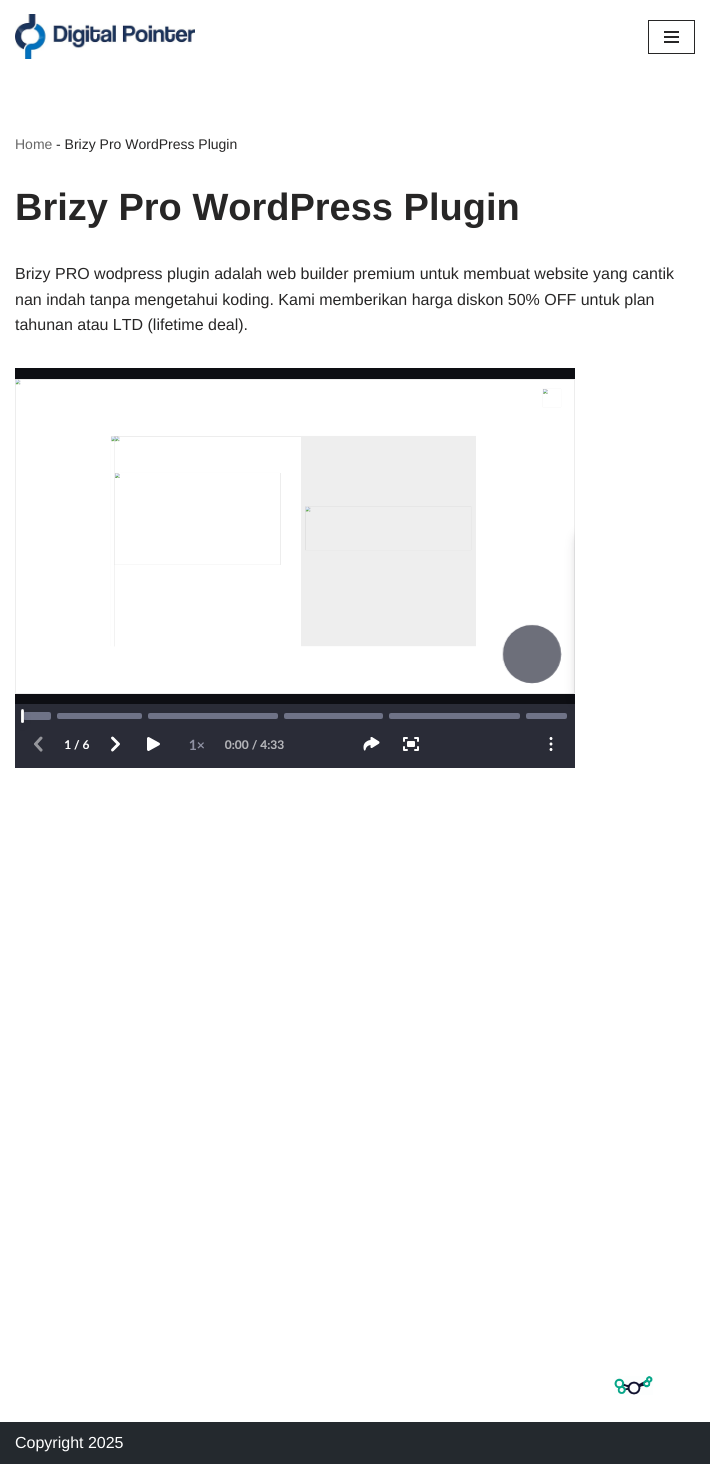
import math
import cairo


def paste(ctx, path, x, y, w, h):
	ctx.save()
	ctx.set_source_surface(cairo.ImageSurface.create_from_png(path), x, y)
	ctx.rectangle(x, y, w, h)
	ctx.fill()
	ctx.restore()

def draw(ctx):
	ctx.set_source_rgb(1, 1, 1)
	ctx.paint()
	paste(ctx, 'media/1.png', 15, 14, 180, 45)
	ctx.rectangle(648.5, 20.5, 46, 33)
	ctx.set_source_rgb(0.153, 0.149, 0.149)
	ctx.set_line_width(1)
	ctx.stroke()
	ctx.rectangle(664, 31, 15, 2)
	ctx.rectangle(664, 36, 15, 2)
	ctx.rectangle(664, 41, 15, 2)
	ctx.fill()
	ctx.select_font_face('Liberation Sans')
	ctx.set_font_size(14)
	ctx.set_source_rgb(0.404, 0.404, 0.404)
	ctx.move_to(15, 149)
	ctx.show_text('Home')
	ctx.set_source_rgb(0.153, 0.149, 0.149)
	ctx.move_to(56, 149)
	ctx.show_text('- Brizy Pro WordPress Plugin')
	ctx.select_font_face('Liberation Sans', cairo.FONT_SLANT_NORMAL, cairo.FONT_WEIGHT_BOLD)
	ctx.set_font_size(38)
	ctx.move_to(15, 220)
	ctx.show_text('Brizy Pro WordPress Plugin')
	ctx.select_font_face('Liberation Sans')
	ctx.set_font_size(16)
	for x, y, s in [
		(15, 279, 'Brizy PRO wodpress plugin adalah web builder premium untuk membuat website yang cantik'),
		(15, 305, 'nan indah tanpa mengetahui koding. Kami memberikan harga diskon 50% OFF untuk plan'),
		(15, 330, 'tahunan atau LTD (lifetime deal).'),
	]:
		ctx.move_to(x, y)
		ctx.show_text(s)
	paste(ctx, 'media/2.png', 15, 368, 560, 400)
	ctx.set_source_rgb(0.141, 0.161, 0.18)
	ctx.rectangle(0, 1422, 710, 42)
	ctx.fill()
	ctx.set_source_rgb(1, 1, 1)
	ctx.move_to(15, 1448)
	ctx.show_text('Copyright 2025')
	paste(ctx, 'media/3.png', 614, 1376, 39, 19)


surface = cairo.ImageSurface(cairo.FORMAT_RGB24, 710, 1464)
ctx = cairo.Context(surface)
options = cairo.FontOptions()
options.set_hint_metrics(cairo.HINT_METRICS_OFF)
options.set_hint_style(cairo.HINT_STYLE_NONE)
ctx.set_font_options(options)
ctx.set_miter_limit(4)
draw(ctx)
surface.write_to_png('image.png')
